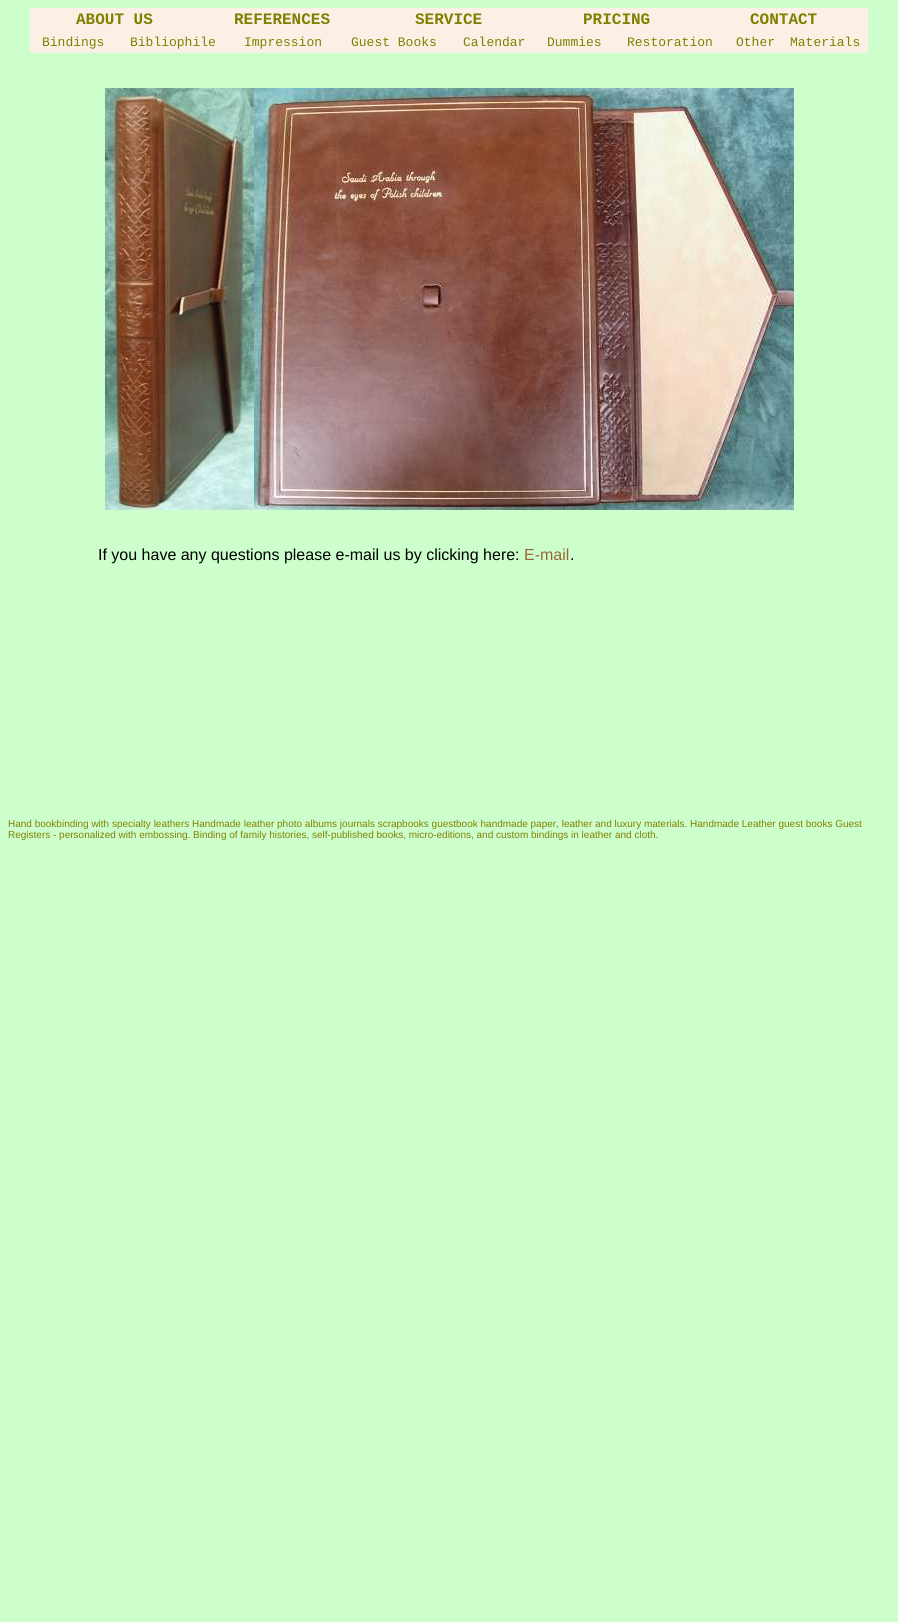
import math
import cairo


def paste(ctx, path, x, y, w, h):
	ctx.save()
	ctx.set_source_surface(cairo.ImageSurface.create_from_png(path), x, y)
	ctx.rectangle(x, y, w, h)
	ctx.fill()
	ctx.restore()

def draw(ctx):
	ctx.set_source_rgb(0.8, 1, 0.8)
	ctx.paint()
	ctx.set_source_rgb(0.98, 0.941, 0.902)
	ctx.rectangle(30, 8, 838, 45)
	ctx.fill()
	ctx.select_font_face('Liberation Mono', cairo.FONT_SLANT_NORMAL, cairo.FONT_WEIGHT_BOLD)
	ctx.set_font_size(16)
	ctx.set_source_rgb(0.502, 0.502, 0)
	for x, y, s in [
		(76, 24, 'ABOUT US'),
		(234, 24, 'REFERENCES'),
		(415, 24, 'SERVICE'),
		(583, 24, 'PRICING'),
		(750, 24, 'CONTACT'),
	]:
		ctx.move_to(x, y)
		ctx.show_text(s)
	ctx.select_font_face('Liberation Mono')
	ctx.set_font_size(13)
	for x, y, s in [
		(42, 46, 'Bindings'),
		(130, 46, 'Bibliophile'),
		(244, 46, 'Impression'),
		(351, 46, 'Guest Books'),
		(463, 46, 'Calendar'),
		(547, 46, 'Dummies'),
		(627, 46, 'Restoration'),
		(736, 46, 'Other'),
		(790, 46, 'Materials'),
	]:
		ctx.move_to(x, y)
		ctx.show_text(s)
	paste(ctx, 'media/1.png', 105, 88, 149, 422)
	paste(ctx, 'media/2.png', 254, 88, 540, 422)
	ctx.select_font_face('Liberation Sans')
	ctx.set_font_size(16)
	ctx.set_source_rgb(0, 0, 0)
	ctx.move_to(98, 560)
	ctx.show_text('If you have any questions please e-mail us by clicking here:')
	ctx.set_source_rgb(0.6, 0.4, 0.2)
	ctx.move_to(524, 560)
	ctx.show_text('E-mail')
	ctx.set_source_rgb(0, 0, 0)
	ctx.move_to(570, 560)
	ctx.show_text('.')
	ctx.set_font_size(10)
	ctx.set_source_rgb(0.502, 0.502, 0)
	ctx.move_to(8, 827)
	ctx.show_text('Hand bookbinding with specialty leathers Handmade leather photo albums journals scrapbooks guestbook handmade paper, leather and luxury materials. Handmade Leather guest books Guest')
	ctx.move_to(8, 838)
	ctx.show_text('Registers - personalized with embossing. Binding of family histories, self-published books, micro-editions, and custom bindings in leather and cloth.')


surface = cairo.ImageSurface(cairo.FORMAT_RGB24, 898, 1622)
ctx = cairo.Context(surface)
options = cairo.FontOptions()
options.set_hint_metrics(cairo.HINT_METRICS_OFF)
options.set_hint_style(cairo.HINT_STYLE_NONE)
ctx.set_font_options(options)
ctx.set_miter_limit(4)
draw(ctx)
surface.write_to_png('image.png')
